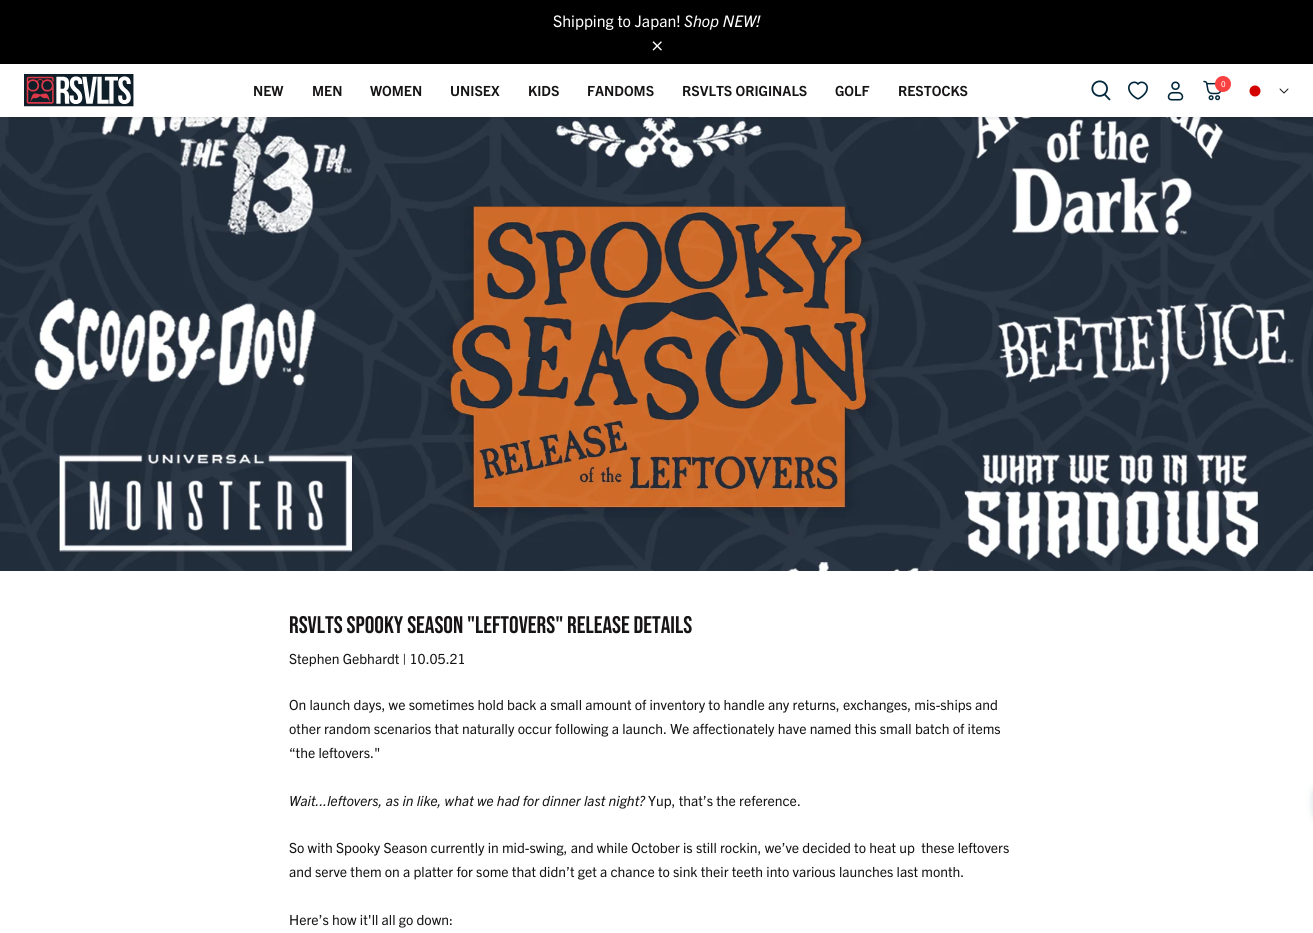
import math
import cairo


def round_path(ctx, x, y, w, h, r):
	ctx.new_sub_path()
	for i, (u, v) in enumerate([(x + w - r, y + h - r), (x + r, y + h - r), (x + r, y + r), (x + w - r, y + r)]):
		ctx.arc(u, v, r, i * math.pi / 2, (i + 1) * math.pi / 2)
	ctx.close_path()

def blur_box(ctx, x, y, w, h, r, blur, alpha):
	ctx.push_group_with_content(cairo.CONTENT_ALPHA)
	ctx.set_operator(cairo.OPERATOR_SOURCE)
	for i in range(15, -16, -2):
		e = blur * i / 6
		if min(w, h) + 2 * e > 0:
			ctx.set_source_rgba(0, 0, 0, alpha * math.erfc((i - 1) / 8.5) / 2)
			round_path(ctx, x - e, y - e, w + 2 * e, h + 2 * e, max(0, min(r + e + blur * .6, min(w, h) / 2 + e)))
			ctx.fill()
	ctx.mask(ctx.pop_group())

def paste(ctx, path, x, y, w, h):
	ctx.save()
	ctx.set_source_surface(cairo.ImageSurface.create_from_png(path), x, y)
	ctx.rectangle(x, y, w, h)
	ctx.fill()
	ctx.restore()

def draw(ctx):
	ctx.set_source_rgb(1, 1, 1)
	ctx.paint()
	ctx.set_source_rgb(0, 0, 0)
	ctx.rectangle(0, 0, 1313, 64)
	ctx.fill()
	ctx.select_font_face('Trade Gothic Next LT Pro')
	ctx.set_font_size(16)
	ctx.set_source_rgb(1, 1, 1)
	ctx.move_to(553, 27)
	ctx.show_text('Shipping to Japan!')
	ctx.select_font_face('Trade Gothic Next LT Pro', cairo.FONT_SLANT_ITALIC)
	ctx.move_to(684, 27)
	ctx.show_text('Shop NEW!')
	paste(ctx, 'media/1.png', 652, 41, 10, 10)
	paste(ctx, 'media/8.png', 0, 117, 1313, 454)
	ctx.save()
	ctx.rectangle(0, 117, 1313, 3)
	ctx.clip()
	ctx.set_source_rgb(0, 0, 0)
	blur_box(ctx, 0, 66, 1313, 53, 0, 2, 0.08)
	ctx.restore()
	paste(ctx, 'media/2.png', 24, 74, 110, 33)
	ctx.select_font_face('Trade Gothic Next LT Pro', cairo.FONT_SLANT_NORMAL, cairo.FONT_WEIGHT_BOLD)
	ctx.set_font_size(14)
	ctx.set_source_rgb(0.086, 0.082, 0.082)
	for x, y, s in [
		(253, 96, 'NEW'),
		(312, 96, 'MEN'),
		(370, 96, 'WOMEN'),
		(450, 96, 'UNISEX'),
		(528, 96, 'KIDS'),
		(587, 96, 'FANDOMS'),
		(682, 96, 'RSVLTS ORIGINALS'),
		(835, 96, 'GOLF'),
		(898, 96, 'RESTOCKS'),
	]:
		ctx.move_to(x, y)
		ctx.show_text(s)
	paste(ctx, 'media/3.png', 1091, 80, 20, 21)
	paste(ctx, 'media/4.png', 1128, 81, 20, 19)
	paste(ctx, 'media/5.png', 1167, 81, 17, 20)
	paste(ctx, 'media/6.png', 1203, 80, 19, 21)
	ctx.set_source_rgb(0.973, 0.255, 0.255)
	ctx.arc(1223, 84, 8, 0, 2 * math.pi)
	ctx.fill()
	ctx.select_font_face('Trade Gothic Next LT Pro')
	ctx.set_font_size(8)
	ctx.set_source_rgb(1, 1, 1)
	ctx.move_to(1221, 87)
	ctx.show_text('0')
	ctx.set_source_rgb(0.827, 0, 0)
	ctx.new_path()
	ctx.arc(1255, 91, 5.5, 0, 2 * math.pi)
	ctx.fill()
	paste(ctx, 'media/7.png', 1279, 88, 10, 6)
	ctx.select_font_face('Bebas Neue')
	ctx.set_font_size(24)
	ctx.set_source_rgb(0.086, 0.082, 0.082)
	ctx.move_to(289, 633)
	ctx.show_text('RSVLTS SPOOKY SEASON "LEFTOVERS" RELEASE DETAILS')
	ctx.select_font_face('Trade Gothic Next LT Pro')
	ctx.set_font_size(14)
	for x, y, s in [
		(289, 664, 'Stephen Gebhardt | 10.05.21'),
		(289, 710, 'On launch days, we sometimes hold back a small amount of inventory to handle any returns, exchanges, mis-ships and'),
		(289, 734, 'other random scenarios that naturally occur following a launch. We affectionately have named this small batch of items'),
		(289, 758, '“the leftovers."'),
	]:
		ctx.move_to(x, y)
		ctx.show_text(s)
	ctx.select_font_face('Trade Gothic Next LT Pro', cairo.FONT_SLANT_ITALIC)
	ctx.move_to(289, 806)
	ctx.show_text('Wait...leftovers, as in like, what we had for dinner last night?')
	ctx.select_font_face('Trade Gothic Next LT Pro')
	for x, y, s in [
		(648, 806, 'Yup, that’s the reference.'),
		(289, 853, 'So with Spooky Season currently in mid-swing, and while October is still rockin, we’ve decided to heat up  these leftovers'),
		(289, 877, 'and serve them on a platter for some that didn’t get a chance to sink their teeth into various launches last month.'),
		(289, 925, 'Here’s how it\'ll all go down:'),
	]:
		ctx.move_to(x, y)
		ctx.show_text(s)
	ctx.set_source_rgb(0.169, 0.318, 0.412)
	blur_box(ctx, 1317, 783, 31, 40, 20, 5, 0.5)


surface = cairo.ImageSurface(cairo.FORMAT_RGB24, 1313, 933)
ctx = cairo.Context(surface)
options = cairo.FontOptions()
options.set_hint_metrics(cairo.HINT_METRICS_OFF)
options.set_hint_style(cairo.HINT_STYLE_NONE)
ctx.set_font_options(options)
ctx.set_miter_limit(4)
draw(ctx)
surface.write_to_png('image.png')
